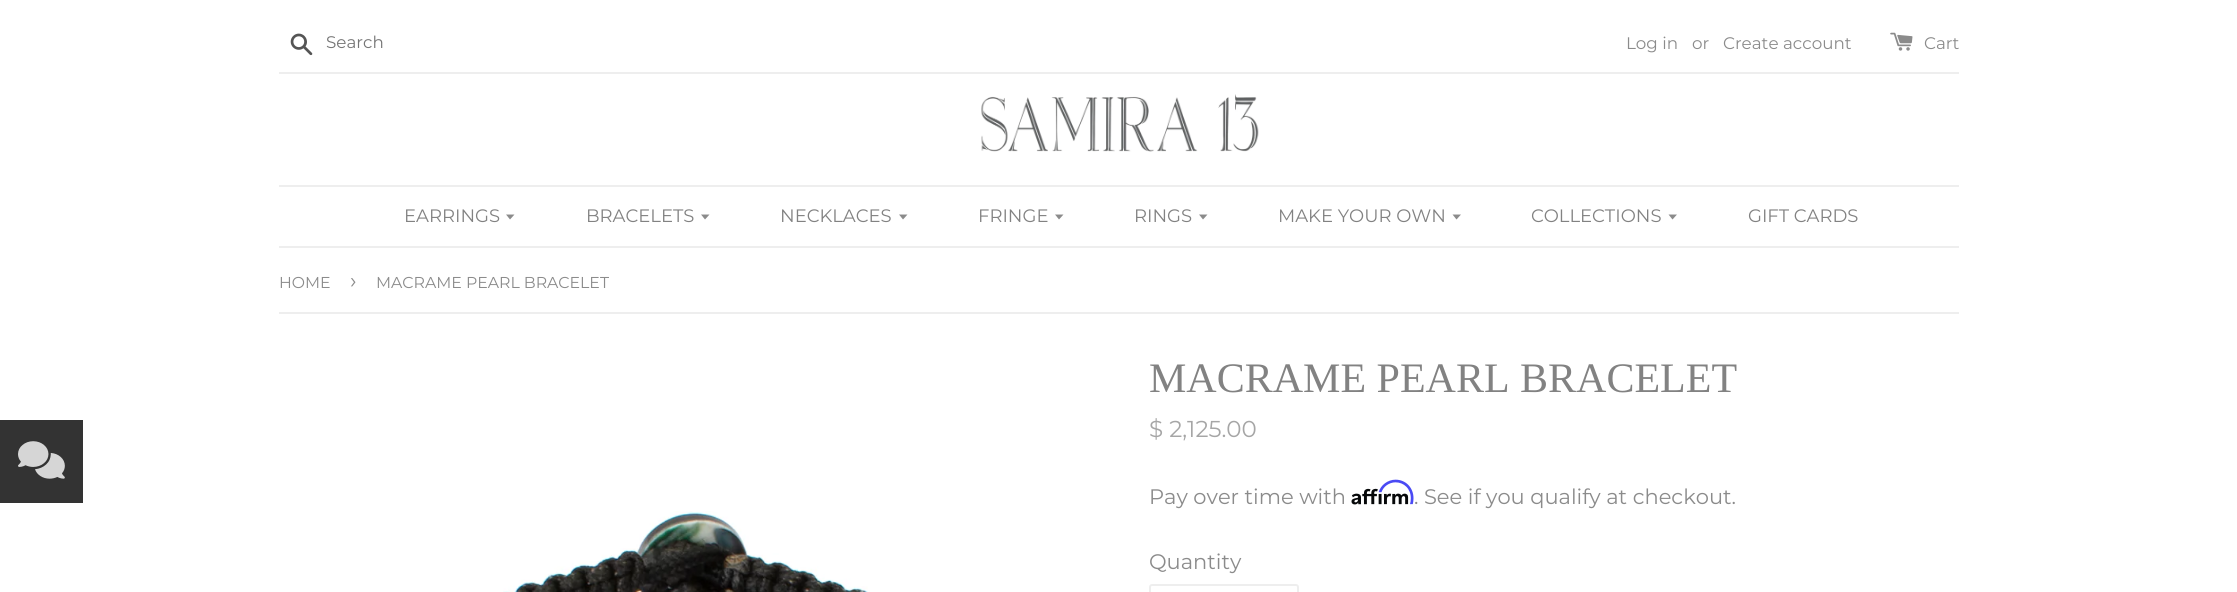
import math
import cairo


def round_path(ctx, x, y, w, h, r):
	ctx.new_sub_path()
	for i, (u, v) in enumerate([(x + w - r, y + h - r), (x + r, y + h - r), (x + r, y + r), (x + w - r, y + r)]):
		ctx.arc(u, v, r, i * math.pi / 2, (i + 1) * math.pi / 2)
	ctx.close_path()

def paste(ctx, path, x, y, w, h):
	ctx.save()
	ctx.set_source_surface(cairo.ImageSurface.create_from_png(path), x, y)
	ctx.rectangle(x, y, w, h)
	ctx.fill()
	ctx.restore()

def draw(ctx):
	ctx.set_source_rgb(1, 1, 1)
	ctx.paint()
	ctx.set_source_rgb(0.933, 0.933, 0.933)
	ctx.rectangle(279, 72, 1680, 2)
	ctx.fill()
	paste(ctx, 'media/1.png', 290, 33, 23, 23)
	ctx.select_font_face('Montserrat')
	ctx.set_font_size(16.75)
	ctx.set_source_rgb(0.459, 0.459, 0.459)
	ctx.move_to(326, 48)
	ctx.show_text('Search')
	ctx.set_source_rgb(0.545, 0.545, 0.545)
	for x, y, s in [
		(1626, 49, 'Log in'),
		(1692, 49, 'or'),
		(1723, 49, 'Create account'),
	]:
		ctx.move_to(x, y)
		ctx.show_text(s)
	paste(ctx, 'media/2.png', 1890, 32, 23, 19)
	ctx.move_to(1924, 49)
	ctx.show_text('Cart')
	paste(ctx, 'media/3.png', 981, 94, 278, 58)
	ctx.set_source_rgb(0.933, 0.933, 0.933)
	ctx.rectangle(279, 185, 1680, 2)
	ctx.fill()
	ctx.rectangle(279, 246, 1680, 2)
	ctx.fill()
	ctx.set_font_size(18)
	ctx.set_source_rgb(0.51, 0.51, 0.51)
	ctx.move_to(404, 222)
	ctx.show_text('EARRINGS')
	ctx.set_source_rgb(0.545, 0.545, 0.545)
	ctx.new_path()
	ctx.move_to(506, 214.5)
	ctx.line_to(510, 219.5)
	ctx.line_to(514.5, 214.5)
	ctx.close_path()
	ctx.fill()
	ctx.set_source_rgb(0.51, 0.51, 0.51)
	ctx.move_to(586, 222)
	ctx.show_text('BRACELETS')
	ctx.set_source_rgb(0.545, 0.545, 0.545)
	ctx.new_path()
	ctx.move_to(701, 214.5)
	ctx.line_to(705, 219.5)
	ctx.line_to(709.5, 214.5)
	ctx.close_path()
	ctx.fill()
	ctx.set_source_rgb(0.51, 0.51, 0.51)
	ctx.move_to(780, 222)
	ctx.show_text('NECKLACES')
	ctx.set_source_rgb(0.545, 0.545, 0.545)
	ctx.new_path()
	ctx.move_to(899, 214.5)
	ctx.line_to(903, 219.5)
	ctx.line_to(907.5, 214.5)
	ctx.close_path()
	ctx.fill()
	ctx.set_source_rgb(0.51, 0.51, 0.51)
	ctx.move_to(978, 222)
	ctx.show_text('FRINGE')
	ctx.set_source_rgb(0.545, 0.545, 0.545)
	ctx.new_path()
	ctx.move_to(1055, 214.5)
	ctx.line_to(1059, 219.5)
	ctx.line_to(1063.5, 214.5)
	ctx.close_path()
	ctx.fill()
	ctx.set_source_rgb(0.51, 0.51, 0.51)
	ctx.move_to(1134, 222)
	ctx.show_text('RINGS')
	ctx.set_source_rgb(0.545, 0.545, 0.545)
	ctx.new_path()
	ctx.move_to(1199, 214.5)
	ctx.line_to(1203, 219.5)
	ctx.line_to(1207.5, 214.5)
	ctx.close_path()
	ctx.fill()
	ctx.set_source_rgb(0.51, 0.51, 0.51)
	ctx.move_to(1278, 222)
	ctx.show_text('MAKE YOUR OWN')
	ctx.set_source_rgb(0.545, 0.545, 0.545)
	ctx.new_path()
	ctx.move_to(1452.5, 214.5)
	ctx.line_to(1456.5, 219.5)
	ctx.line_to(1461, 214.5)
	ctx.close_path()
	ctx.fill()
	ctx.set_source_rgb(0.51, 0.51, 0.51)
	ctx.move_to(1531, 222)
	ctx.show_text('COLLECTIONS')
	ctx.set_source_rgb(0.545, 0.545, 0.545)
	ctx.new_path()
	ctx.move_to(1668.5, 214.5)
	ctx.line_to(1672.5, 219.5)
	ctx.line_to(1677, 214.5)
	ctx.close_path()
	ctx.fill()
	ctx.set_source_rgb(0.51, 0.51, 0.51)
	ctx.move_to(1748, 222)
	ctx.show_text('GIFT CARDS')
	ctx.set_source_rgb(0.2, 0.2, 0.2)
	ctx.rectangle(0, 420, 83, 83)
	ctx.fill()
	paste(ctx, 'media/4.png', 18, 441, 47, 38)
	ctx.set_source_rgb(0.933, 0.933, 0.933)
	ctx.rectangle(279, 312, 1680, 2)
	ctx.fill()
	ctx.set_font_size(15.75)
	ctx.set_source_rgb(0.545, 0.545, 0.545)
	ctx.move_to(279, 288)
	ctx.show_text('HOME')
	ctx.set_font_size(22)
	ctx.move_to(350, 288)
	ctx.show_text('›')
	ctx.set_font_size(15.75)
	ctx.move_to(376, 288)
	ctx.show_text('MACRAME PEARL BRACELET')
	paste(ctx, 'media/5.png', 503, 511, 365, 81)
	ctx.select_font_face('Liberation Serif')
	ctx.set_font_size(42)
	ctx.set_source_rgb(0.51, 0.51, 0.51)
	ctx.move_to(1149, 392)
	ctx.show_text('MACRAME PEARL BRACELET')
	ctx.select_font_face('Montserrat')
	ctx.set_font_size(23)
	ctx.set_source_rgb(0.651, 0.651, 0.651)
	ctx.move_to(1149, 437)
	ctx.show_text('$ 2,125.00')
	ctx.set_font_size(21)
	ctx.set_source_rgb(0.545, 0.545, 0.545)
	ctx.move_to(1149, 504)
	ctx.show_text('Pay over time with')
	paste(ctx, 'media/7.png', 1351, 488, 58, 17)
	paste(ctx, 'media/6.png', 1378, 479, 36, 26)
	ctx.move_to(1414, 504)
	ctx.show_text('. See if you qualify at checkout.')
	ctx.move_to(1149, 569)
	ctx.show_text('Quantity')
	round_path(ctx, 1150, 585, 148, 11, 2)
	ctx.set_source_rgb(0.933, 0.933, 0.933)
	ctx.stroke()


surface = cairo.ImageSurface(cairo.FORMAT_RGB24, 2237, 592)
ctx = cairo.Context(surface)
options = cairo.FontOptions()
options.set_hint_metrics(cairo.HINT_METRICS_OFF)
options.set_hint_style(cairo.HINT_STYLE_NONE)
ctx.set_font_options(options)
ctx.set_miter_limit(4)
draw(ctx)
surface.write_to_png('image.png')
